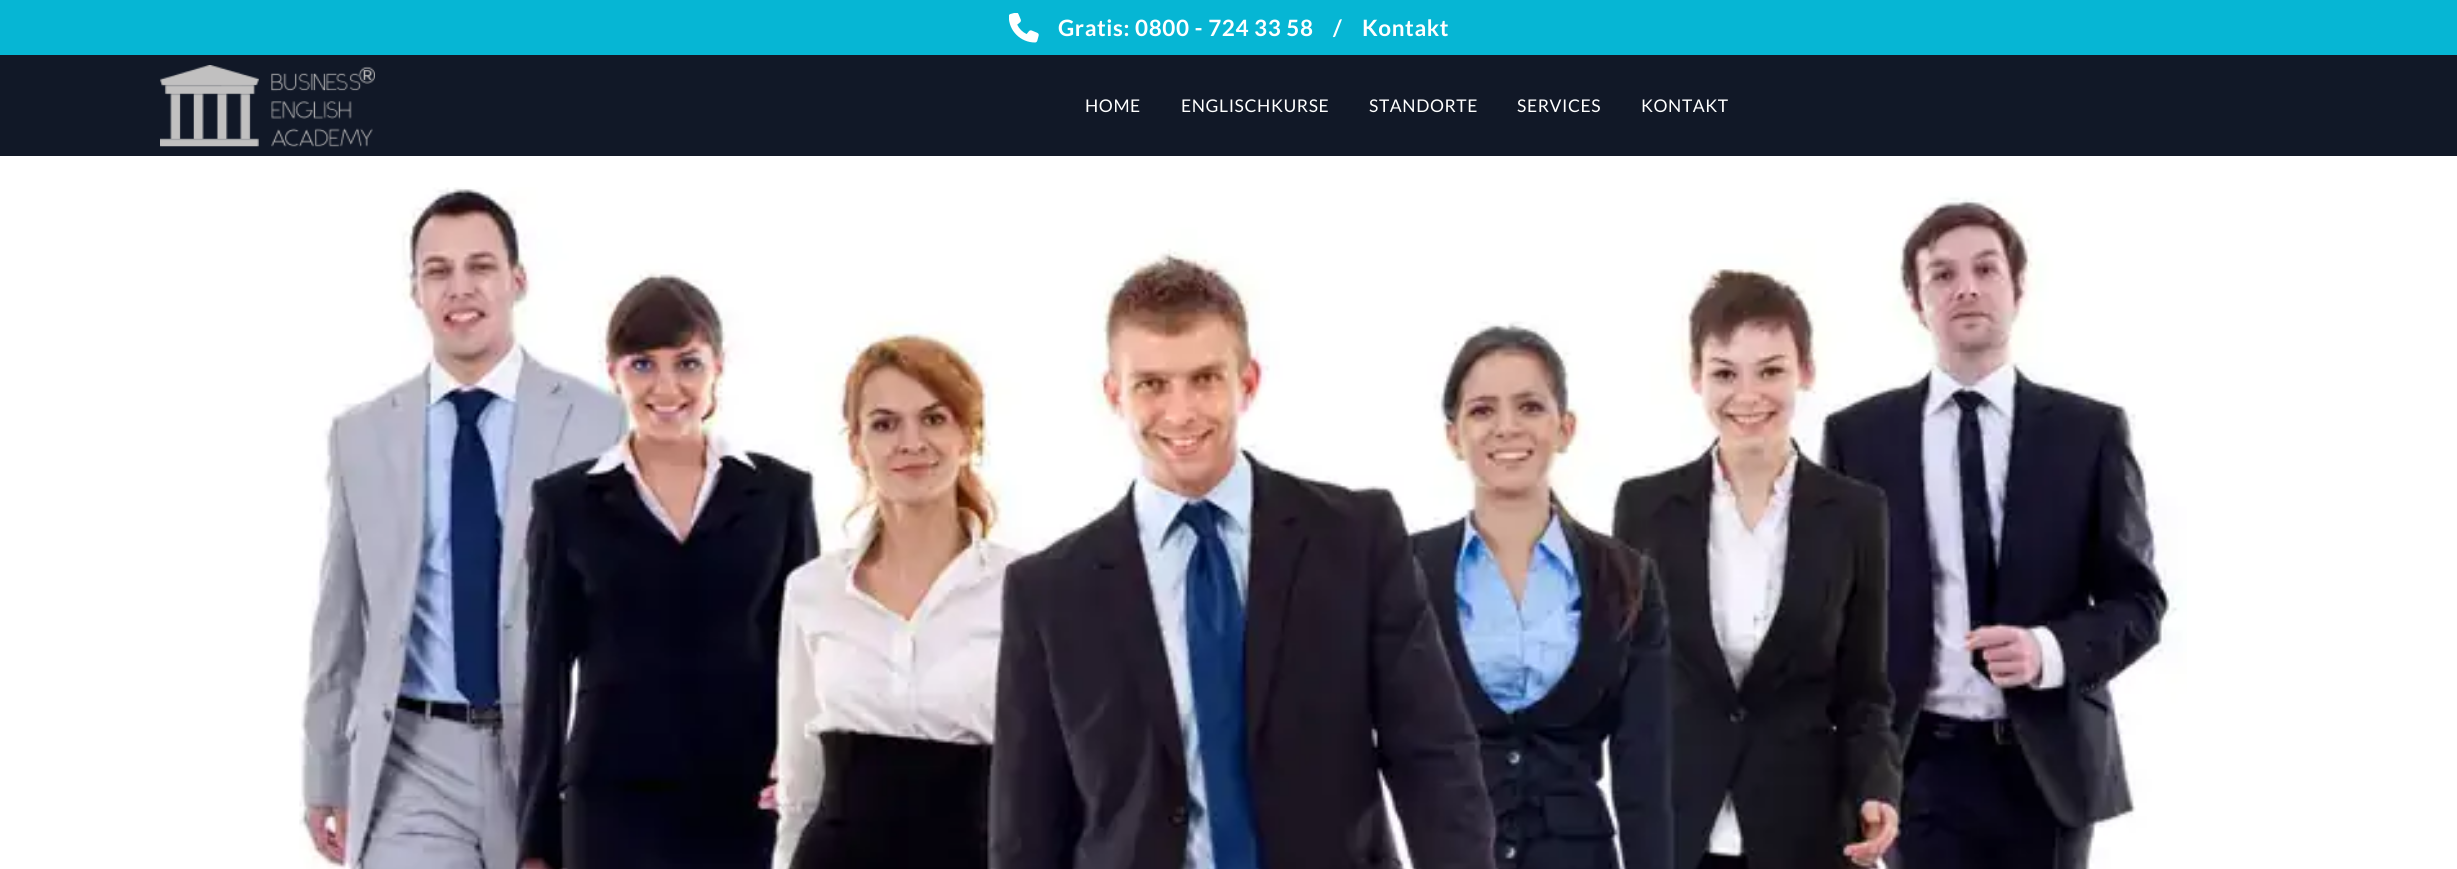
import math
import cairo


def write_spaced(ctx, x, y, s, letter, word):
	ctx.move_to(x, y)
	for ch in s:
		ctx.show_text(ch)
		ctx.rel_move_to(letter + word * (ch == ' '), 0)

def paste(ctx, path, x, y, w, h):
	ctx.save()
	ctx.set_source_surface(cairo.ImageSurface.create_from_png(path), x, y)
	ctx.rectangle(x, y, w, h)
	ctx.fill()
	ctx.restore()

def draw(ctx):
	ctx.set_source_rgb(1, 1, 1)
	ctx.paint()
	ctx.set_source_rgb(0.024, 0.714, 0.831)
	ctx.rectangle(0, 0, 2457, 55)
	ctx.fill()
	paste(ctx, 'media/1.png', 1009, 13, 30, 30)
	ctx.select_font_face('Lato', cairo.FONT_SLANT_NORMAL, cairo.FONT_WEIGHT_BOLD)
	ctx.set_font_size(22.5)
	ctx.set_source_rgb(1, 1, 1)
	for x, y, s in [
		(1058, 36, 'Gratis: 0800 - 724 33 58'),
		(1333, 36, '/'),
		(1362, 36, 'Kontakt'),
	]:
		write_spaced(ctx, x, y, s, 0.6, 0)
	ctx.set_source_rgb(0.067, 0.094, 0.153)
	ctx.rectangle(0, 55, 2457, 101)
	ctx.fill()
	paste(ctx, 'media/2.png', 160, 65, 215, 82)
	ctx.select_font_face('Lato')
	ctx.set_font_size(17.5)
	ctx.set_source_rgb(1, 1, 1)
	for x, y, s in [
		(1085, 112, 'HOME'),
		(1181, 112, 'ENGLISCHKURSE'),
		(1369, 112, 'STANDORTE'),
		(1517, 112, 'SERVICES'),
		(1641, 112, 'KONTAKT'),
	]:
		write_spaced(ctx, x, y, s, 0.6, 0)
	paste(ctx, 'media/3.png', 299, 187, 1888, 682)


surface = cairo.ImageSurface(cairo.FORMAT_RGB24, 2457, 869)
ctx = cairo.Context(surface)
options = cairo.FontOptions()
options.set_hint_metrics(cairo.HINT_METRICS_OFF)
options.set_hint_style(cairo.HINT_STYLE_NONE)
ctx.set_font_options(options)
ctx.set_miter_limit(4)
draw(ctx)
surface.write_to_png('image.png')
